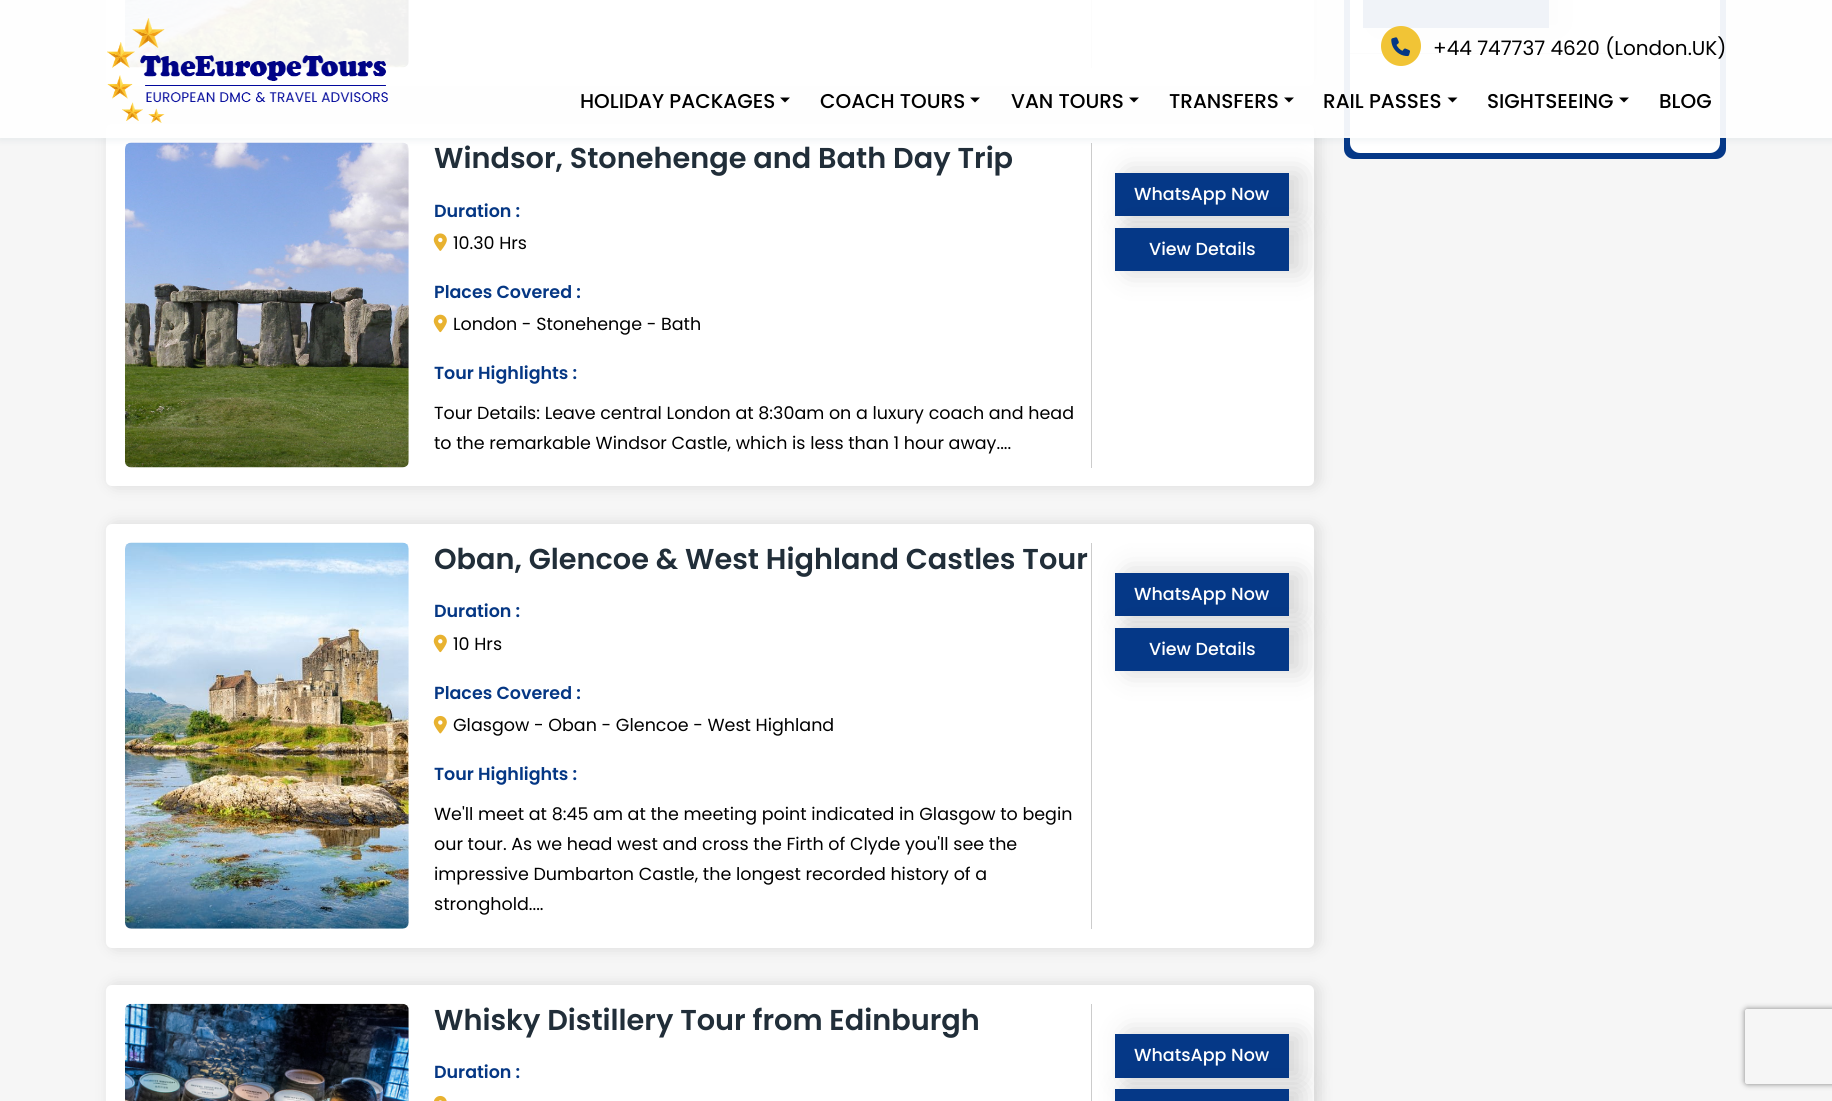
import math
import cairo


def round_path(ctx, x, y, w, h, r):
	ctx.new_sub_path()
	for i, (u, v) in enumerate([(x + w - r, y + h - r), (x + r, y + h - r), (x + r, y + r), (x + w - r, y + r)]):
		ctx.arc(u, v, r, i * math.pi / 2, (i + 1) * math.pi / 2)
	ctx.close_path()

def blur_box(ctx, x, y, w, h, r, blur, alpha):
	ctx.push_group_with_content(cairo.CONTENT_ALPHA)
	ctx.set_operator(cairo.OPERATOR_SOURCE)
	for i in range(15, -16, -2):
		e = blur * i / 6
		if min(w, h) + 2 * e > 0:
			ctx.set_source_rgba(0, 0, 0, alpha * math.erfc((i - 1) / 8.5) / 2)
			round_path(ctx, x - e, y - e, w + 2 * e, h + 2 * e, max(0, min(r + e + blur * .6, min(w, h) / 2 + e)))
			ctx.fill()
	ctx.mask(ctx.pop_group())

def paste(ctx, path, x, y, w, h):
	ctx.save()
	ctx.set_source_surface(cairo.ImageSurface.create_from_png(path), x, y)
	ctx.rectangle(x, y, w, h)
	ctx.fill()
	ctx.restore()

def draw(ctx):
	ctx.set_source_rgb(0.961, 0.961, 0.961)
	ctx.paint()
	ctx.set_source_rgb(0.02, 0.22, 0.529)
	round_path(ctx, 1344, -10, 382, 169, 10)
	ctx.fill()
	ctx.set_source_rgb(1, 1, 1)
	round_path(ctx, 1350, -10, 370, 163, 10)
	ctx.fill()
	ctx.set_source_rgb(0.8, 0.8, 0.8)
	ctx.rectangle(1350, 53, 370, 1)
	ctx.fill()
	ctx.set_source_rgb(0, 0, 0)
	blur_box(ctx, 1375, -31, 186, 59, 0, 14, 0.17)
	ctx.set_source_rgb(0.02, 0.22, 0.529)
	ctx.rectangle(1363, 0, 186, 28)
	ctx.fill()
	ctx.set_source_rgb(0, 0, 0)
	blur_box(ctx, 110, -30, 1208, 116, 6, 8, 0.12)
	ctx.set_source_rgb(1, 1, 1)
	round_path(ctx, 106, -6, 1208, 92, 6)
	ctx.fill()
	paste(ctx, 'media/3.png', 125, 0, 284, 68)
	ctx.set_source_rgb(0.8, 0.8, 0.8)
	ctx.rectangle(1091, 0, 1, 68)
	ctx.fill()
	ctx.set_source_rgb(0, 0, 0)
	blur_box(ctx, 110, 124, 1208, 362, 6, 8, 0.12)
	ctx.set_source_rgb(1, 1, 1)
	round_path(ctx, 106, 124, 1208, 362, 6)
	ctx.fill()
	paste(ctx, 'media/4.png', 125, 142, 284, 326)
	ctx.set_source_rgb(0.8, 0.8, 0.8)
	ctx.rectangle(1091, 143, 1, 325)
	ctx.fill()
	ctx.save()
	ctx.set_fill_rule(cairo.FILL_RULE_EVEN_ODD)
	ctx.new_path()
	ctx.move_to(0, 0)
	ctx.line_to(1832, 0)
	ctx.line_to(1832, 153)
	ctx.line_to(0, 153)
	ctx.close_path()
	ctx.move_to(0, 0)
	ctx.line_to(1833, 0)
	ctx.line_to(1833, 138)
	ctx.line_to(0, 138)
	ctx.close_path()
	ctx.clip()
	ctx.set_source_rgb(0.118, 0.294, 0.408)
	blur_box(ctx, 0, 3, 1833, 137, 0, 4, 0.08)
	ctx.restore()
	ctx.set_source_rgb(0, 0, 0)
	blur_box(ctx, 1128, 173, 173, 43, 0, 14, 0.17)
	ctx.set_source_rgba(1, 1, 1, 0.94)
	ctx.rectangle(0, 0, 1832, 138)
	ctx.fill()
	ctx.set_source_rgba(1, 1, 1, 0.35)
	ctx.rectangle(1344, 136, 382, 1)
	ctx.fill()
	paste(ctx, 'media/1.png', 107, 18, 281, 105)
	ctx.set_source_rgb(0.945, 0.769, 0.212)
	ctx.arc(1401, 46, 20, 0, 2 * math.pi)
	ctx.fill()
	paste(ctx, 'media/2.png', 1391, 37, 19, 20)
	ctx.select_font_face('Poppins')
	ctx.set_font_size(20)
	ctx.set_source_rgb(0, 0, 0)
	ctx.move_to(1433, 55)
	ctx.show_text('+44 747737 4620 (London.UK)')
	ctx.select_font_face('Poppins Medium')
	ctx.move_to(580, 108)
	ctx.show_text('HOLIDAY PACKAGES')
	ctx.new_path()
	ctx.move_to(780, 97.5)
	ctx.line_to(790, 97.5)
	ctx.line_to(785, 102.5)
	ctx.close_path()
	ctx.fill()
	ctx.move_to(820, 108)
	ctx.show_text('COACH TOURS')
	ctx.new_path()
	ctx.move_to(970, 97.5)
	ctx.line_to(980, 97.5)
	ctx.line_to(975, 102.5)
	ctx.close_path()
	ctx.fill()
	ctx.move_to(1011, 108)
	ctx.show_text('VAN TOURS')
	ctx.new_path()
	ctx.move_to(1129, 97.5)
	ctx.line_to(1139, 97.5)
	ctx.line_to(1134, 102.5)
	ctx.close_path()
	ctx.fill()
	ctx.move_to(1169, 108)
	ctx.show_text('TRANSFERS')
	ctx.new_path()
	ctx.move_to(1284, 97.5)
	ctx.line_to(1294, 97.5)
	ctx.line_to(1289, 102.5)
	ctx.close_path()
	ctx.fill()
	ctx.move_to(1323, 108)
	ctx.show_text('RAIL PASSES')
	ctx.new_path()
	ctx.move_to(1447.5, 97.5)
	ctx.line_to(1457.5, 97.5)
	ctx.line_to(1452.5, 102.5)
	ctx.close_path()
	ctx.fill()
	ctx.move_to(1487, 108)
	ctx.show_text('SIGHTSEEING')
	ctx.new_path()
	ctx.move_to(1619, 97.5)
	ctx.line_to(1629, 97.5)
	ctx.line_to(1624, 102.5)
	ctx.close_path()
	ctx.fill()
	ctx.move_to(1659, 108)
	ctx.show_text('BLOG')
	ctx.select_font_face('Poppins SemiBold')
	ctx.set_font_size(28.75)
	ctx.set_source_rgb(0.129, 0.18, 0.224)
	ctx.move_to(434, 168)
	ctx.show_text('Windsor, Stonehenge and Bath Day Trip')
	ctx.set_font_size(17.5)
	ctx.set_source_rgb(0.02, 0.216, 0.518)
	ctx.move_to(434, 217)
	ctx.show_text('Duration :')
	paste(ctx, 'media/5.png', 433, 233, 14, 18)
	ctx.select_font_face('Poppins')
	ctx.set_source_rgb(0, 0, 0)
	ctx.move_to(453, 249)
	ctx.show_text('10.30 Hrs')
	ctx.select_font_face('Poppins SemiBold')
	ctx.set_source_rgb(0.02, 0.216, 0.518)
	ctx.move_to(434, 298)
	ctx.show_text('Places Covered :')
	paste(ctx, 'media/6.png', 433, 314, 14, 19)
	ctx.select_font_face('Poppins')
	ctx.set_source_rgb(0, 0, 0)
	ctx.move_to(453, 330)
	ctx.show_text('London - Stonehenge - Bath')
	ctx.select_font_face('Poppins SemiBold')
	ctx.set_source_rgb(0.02, 0.216, 0.518)
	ctx.move_to(434, 379)
	ctx.show_text('Tour Highlights :')
	ctx.select_font_face('Poppins')
	ctx.set_source_rgb(0, 0, 0)
	ctx.move_to(434, 419)
	ctx.show_text('Tour Details: Leave central London at 8:30am on a luxury coach and head')
	ctx.move_to(434, 449)
	ctx.show_text('to the remarkable Windsor Castle, which is less than 1 hour away....')
	ctx.set_source_rgb(0.02, 0.22, 0.529)
	ctx.rectangle(1115, 173, 174, 43)
	ctx.fill()
	ctx.select_font_face('Poppins Medium')
	ctx.set_source_rgb(1, 1, 1)
	ctx.move_to(1134, 200)
	ctx.show_text('WhatsApp Now')
	ctx.set_source_rgb(0, 0, 0)
	blur_box(ctx, 1128, 228, 173, 43, 0, 14, 0.17)
	ctx.set_source_rgb(0.02, 0.22, 0.529)
	ctx.rectangle(1115, 228, 174, 43)
	ctx.fill()
	ctx.set_source_rgb(1, 1, 1)
	ctx.move_to(1149, 255)
	ctx.show_text('View Details')
	ctx.set_source_rgb(0, 0, 0)
	blur_box(ctx, 110, 524, 1208, 424, 6, 8, 0.12)
	ctx.set_source_rgb(1, 1, 1)
	round_path(ctx, 106, 524, 1208, 424, 6)
	ctx.fill()
	paste(ctx, 'media/7.png', 125, 542, 284, 387)
	ctx.select_font_face('Poppins SemiBold')
	ctx.set_font_size(28.75)
	ctx.set_source_rgb(0.129, 0.18, 0.224)
	ctx.move_to(434, 569)
	ctx.show_text('Oban, Glencoe & West Highland Castles Tour')
	ctx.set_font_size(17.5)
	ctx.set_source_rgb(0.02, 0.216, 0.518)
	ctx.move_to(434, 617)
	ctx.show_text('Duration :')
	paste(ctx, 'media/6.png', 433, 634, 14, 19)
	ctx.select_font_face('Poppins')
	ctx.set_source_rgb(0, 0, 0)
	ctx.move_to(453, 650)
	ctx.show_text('10 Hrs')
	ctx.select_font_face('Poppins SemiBold')
	ctx.set_source_rgb(0.02, 0.216, 0.518)
	ctx.move_to(434, 699)
	ctx.show_text('Places Covered :')
	paste(ctx, 'media/8.png', 433, 715, 14, 19)
	ctx.select_font_face('Poppins')
	ctx.set_source_rgb(0, 0, 0)
	ctx.move_to(453, 731)
	ctx.show_text('Glasgow - Oban - Glencoe - West Highland')
	ctx.select_font_face('Poppins SemiBold')
	ctx.set_source_rgb(0.02, 0.216, 0.518)
	ctx.move_to(434, 780)
	ctx.show_text('Tour Highlights :')
	ctx.select_font_face('Poppins')
	ctx.set_source_rgb(0, 0, 0)
	for x, y, s in [
		(434, 820, 'We\'ll meet at 8:45 am at the meeting point indicated in Glasgow to begin'),
		(434, 850, 'our tour. As we head west and cross the Firth of Clyde you\'ll see the'),
		(434, 880, 'impressive Dumbarton Castle, the longest recorded history of a'),
		(434, 910, 'stronghold....'),
	]:
		ctx.move_to(x, y)
		ctx.show_text(s)
	ctx.set_source_rgb(0.8, 0.8, 0.8)
	ctx.rectangle(1091, 543, 1, 386)
	ctx.fill()
	ctx.set_source_rgb(0, 0, 0)
	blur_box(ctx, 1128, 573, 173, 43, 0, 14, 0.17)
	ctx.set_source_rgb(0.02, 0.22, 0.529)
	ctx.rectangle(1115, 573, 174, 43)
	ctx.fill()
	ctx.select_font_face('Poppins Medium')
	ctx.set_source_rgb(1, 1, 1)
	ctx.move_to(1134, 600)
	ctx.show_text('WhatsApp Now')
	ctx.set_source_rgb(0, 0, 0)
	blur_box(ctx, 1128, 628, 173, 43, 0, 14, 0.17)
	ctx.set_source_rgb(0.02, 0.22, 0.529)
	ctx.rectangle(1115, 628, 174, 43)
	ctx.fill()
	ctx.set_source_rgb(1, 1, 1)
	ctx.move_to(1149, 655)
	ctx.show_text('View Details')
	ctx.set_source_rgb(0, 0, 0)
	blur_box(ctx, 110, 985, 1208, 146, 6, 8, 0.12)
	ctx.set_source_rgb(1, 1, 1)
	round_path(ctx, 106, 985, 1208, 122, 6)
	ctx.fill()
	paste(ctx, 'media/9.png', 125, 1003, 284, 98)
	ctx.select_font_face('Poppins SemiBold')
	ctx.set_font_size(28.75)
	ctx.set_source_rgb(0.129, 0.18, 0.224)
	ctx.move_to(434, 1030)
	ctx.show_text('Whisky Distillery Tour from Edinburgh')
	ctx.set_font_size(17.5)
	ctx.set_source_rgb(0.02, 0.216, 0.518)
	ctx.move_to(434, 1078)
	ctx.show_text('Duration :')
	paste(ctx, 'media/10.png', 434, 1095, 13, 6)
	ctx.set_source_rgb(0.8, 0.8, 0.8)
	ctx.rectangle(1091, 1004, 1, 97)
	ctx.fill()
	ctx.set_source_rgb(0, 0, 0)
	blur_box(ctx, 1128, 1034, 173, 44, 0, 14, 0.17)
	ctx.set_source_rgb(0.02, 0.22, 0.529)
	ctx.rectangle(1115, 1034, 174, 44)
	ctx.fill()
	ctx.set_source_rgb(0, 0, 0)
	blur_box(ctx, 1128, 1089, 173, 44, 0, 14, 0.17)
	ctx.set_source_rgb(0.02, 0.22, 0.529)
	ctx.rectangle(1115, 1089, 174, 12)
	ctx.fill()
	ctx.select_font_face('Poppins Medium')
	ctx.set_source_rgb(1, 1, 1)
	ctx.move_to(1134, 1061)
	ctx.show_text('WhatsApp Now')
	ctx.save()
	ctx.set_fill_rule(cairo.FILL_RULE_EVEN_ODD)
	ctx.new_path()
	ctx.move_to(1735, 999)
	ctx.line_to(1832, 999)
	ctx.line_to(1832, 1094)
	ctx.line_to(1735, 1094)
	ctx.close_path()
	ctx.move_to(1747.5, 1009)
	ctx.line_to(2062.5, 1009)
	ctx.curve_to(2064, 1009, 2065, 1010, 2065, 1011.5)
	ctx.line_to(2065, 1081.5)
	ctx.curve_to(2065, 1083, 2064, 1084, 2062.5, 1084)
	ctx.line_to(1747.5, 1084)
	ctx.curve_to(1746, 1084, 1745, 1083, 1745, 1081.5)
	ctx.line_to(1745, 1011.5)
	ctx.curve_to(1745, 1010, 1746, 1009, 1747.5, 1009)
	ctx.close_path()
	ctx.clip()
	ctx.set_source_rgb(0.502, 0.502, 0.502)
	blur_box(ctx, 1745, 1009, 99, 75, 2.5, 3, 1)
	ctx.restore()


surface = cairo.ImageSurface(cairo.FORMAT_RGB24, 1832, 1101)
ctx = cairo.Context(surface)
options = cairo.FontOptions()
options.set_hint_metrics(cairo.HINT_METRICS_OFF)
options.set_hint_style(cairo.HINT_STYLE_NONE)
ctx.set_font_options(options)
ctx.set_miter_limit(4)
draw(ctx)
surface.write_to_png('image.png')
